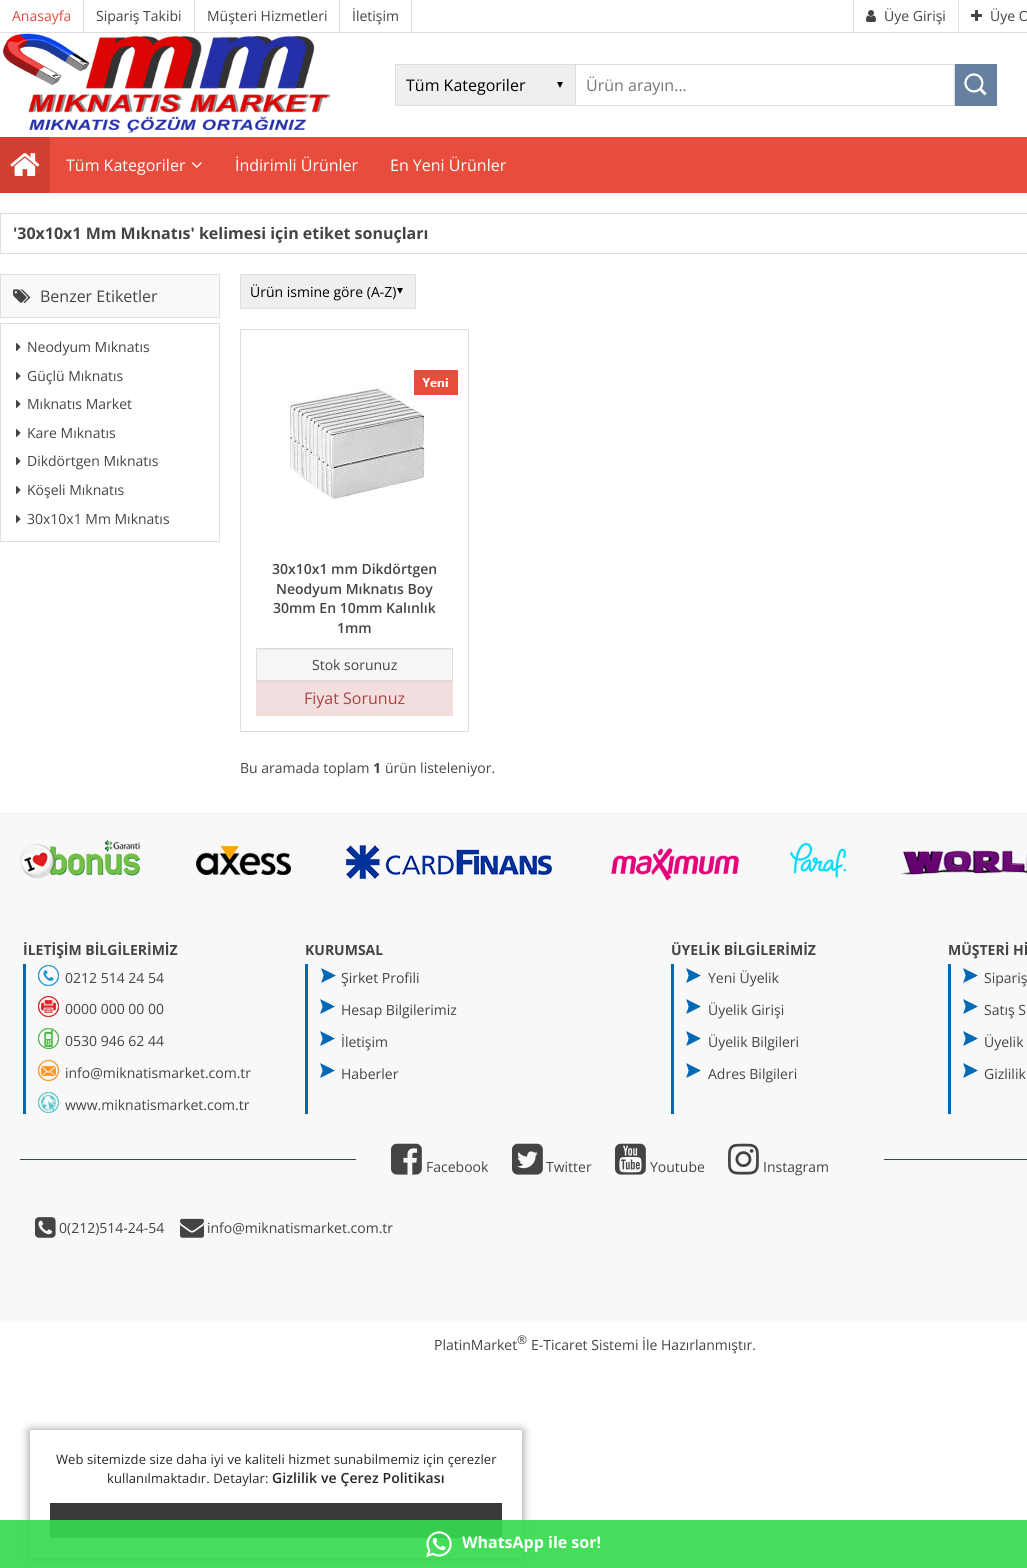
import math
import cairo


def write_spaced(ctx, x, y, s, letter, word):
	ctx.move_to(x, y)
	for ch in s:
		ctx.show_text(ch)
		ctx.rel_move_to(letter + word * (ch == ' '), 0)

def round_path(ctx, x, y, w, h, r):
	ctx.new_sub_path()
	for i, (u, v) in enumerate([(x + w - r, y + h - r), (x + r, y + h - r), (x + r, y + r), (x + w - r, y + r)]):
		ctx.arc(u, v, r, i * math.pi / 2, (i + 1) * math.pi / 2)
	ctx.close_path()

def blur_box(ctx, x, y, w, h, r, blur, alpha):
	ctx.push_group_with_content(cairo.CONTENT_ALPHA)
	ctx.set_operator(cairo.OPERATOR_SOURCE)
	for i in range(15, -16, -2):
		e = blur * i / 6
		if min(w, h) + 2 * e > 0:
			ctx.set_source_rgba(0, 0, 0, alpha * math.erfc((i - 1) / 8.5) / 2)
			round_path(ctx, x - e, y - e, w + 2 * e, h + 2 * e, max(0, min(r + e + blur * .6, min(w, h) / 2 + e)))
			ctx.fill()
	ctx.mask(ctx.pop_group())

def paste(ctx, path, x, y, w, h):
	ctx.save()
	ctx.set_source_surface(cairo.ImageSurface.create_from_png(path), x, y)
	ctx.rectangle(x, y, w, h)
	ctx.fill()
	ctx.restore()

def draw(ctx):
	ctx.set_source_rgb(1, 1, 1)
	ctx.paint()
	ctx.set_source_rgb(0.871, 0.871, 0.871)
	ctx.rectangle(0, 32, 1027, 1)
	ctx.fill()
	ctx.rectangle(83, 0, 1, 32)
	ctx.fill()
	ctx.select_font_face('Open Sans')
	ctx.set_font_size(14)
	ctx.set_source_rgb(0.906, 0.298, 0.235)
	ctx.move_to(12, 21)
	ctx.show_text('Anasayfa')
	ctx.set_source_rgb(0.871, 0.871, 0.871)
	ctx.rectangle(194, 0, 1, 32)
	ctx.fill()
	ctx.set_source_rgb(0.267, 0.267, 0.267)
	ctx.move_to(96, 21)
	ctx.show_text('Sipariş Takibi')
	ctx.set_source_rgb(0.871, 0.871, 0.871)
	ctx.rectangle(339, 0, 1, 32)
	ctx.fill()
	ctx.set_source_rgb(0.267, 0.267, 0.267)
	ctx.move_to(207, 21)
	ctx.show_text('Müşteri Hizmetleri')
	ctx.set_source_rgb(0.871, 0.871, 0.871)
	ctx.rectangle(411, 0, 1, 32)
	ctx.fill()
	ctx.set_source_rgb(0.267, 0.267, 0.267)
	ctx.move_to(352, 21)
	ctx.show_text('İletişim')
	ctx.set_source_rgb(0.871, 0.871, 0.871)
	ctx.rectangle(853, 0, 1, 32)
	ctx.fill()
	paste(ctx, 'media/1.png', 866, 10, 10, 12)
	ctx.set_source_rgb(0.267, 0.267, 0.267)
	ctx.move_to(884, 21)
	ctx.show_text('Üye Girişi')
	ctx.set_source_rgb(0.871, 0.871, 0.871)
	ctx.rectangle(958, 0, 1, 32)
	ctx.fill()
	paste(ctx, 'media/2.png', 971, 10, 11, 11)
	ctx.set_source_rgb(0.267, 0.267, 0.267)
	ctx.move_to(990, 21)
	ctx.show_text('Üye O')
	paste(ctx, 'media/3.png', 2, 33, 329, 100)
	ctx.set_source_rgb(0.937, 0.937, 0.937)
	ctx.rectangle(396, 65, 179, 40)
	ctx.fill()
	paste(ctx, 'media/4.png', 557, 82, 6, 6)
	ctx.set_source_rgb(0.871, 0.871, 0.871)
	ctx.rectangle(395, 64, 180, 1)
	ctx.rectangle(395, 105, 180, 1)
	ctx.rectangle(395, 64, 1, 42)
	ctx.fill()
	ctx.set_font_size(16)
	ctx.set_source_rgb(0, 0, 0)
	ctx.move_to(406, 91)
	ctx.show_text('Tüm Kategoriler')
	ctx.rectangle(575.5, 64.5, 379, 41)
	ctx.set_source_rgb(0.871, 0.871, 0.871)
	ctx.set_line_width(1)
	ctx.stroke()
	ctx.set_source_rgb(0.459, 0.459, 0.459)
	ctx.move_to(586, 91)
	ctx.show_text('Ürün arayın...')
	ctx.set_source_rgb(0.404, 0.502, 0.624)
	ctx.rectangle(955, 64, 42, 42)
	ctx.fill()
	paste(ctx, 'media/5.png', 964, 73, 23, 23)
	ctx.set_source_rgb(0.906, 0.298, 0.235)
	ctx.rectangle(50, 137, 977, 56)
	ctx.fill()
	ctx.set_source_rgb(0.82, 0.247, 0.188)
	ctx.rectangle(0, 137, 50, 56)
	ctx.fill()
	paste(ctx, 'media/6.png', 10, 153, 30, 23)
	ctx.set_source_rgb(1, 1, 1)
	ctx.move_to(66, 171)
	ctx.show_text('Tüm Kategoriler')
	paste(ctx, 'media/7.png', 191, 162, 11, 6)
	ctx.move_to(235, 171)
	ctx.show_text('İndirimli Ürünler')
	ctx.move_to(390, 171)
	ctx.show_text('En Yeni Ürünler')
	ctx.save()
	ctx.set_fill_rule(cairo.FILL_RULE_EVEN_ODD)
	ctx.new_path()
	ctx.move_to(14, 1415)
	ctx.line_to(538, 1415)
	ctx.line_to(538, 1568)
	ctx.line_to(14, 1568)
	ctx.close_path()
	ctx.move_to(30, 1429)
	ctx.line_to(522, 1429)
	ctx.line_to(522, 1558)
	ctx.line_to(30, 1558)
	ctx.close_path()
	ctx.clip()
	ctx.set_source_rgb(0.533, 0.533, 0.533)
	blur_box(ctx, 30, 1431, 492, 129, 0, 5, 1)
	ctx.restore()
	ctx.set_source_rgb(0.8, 0.8, 0.8)
	ctx.rectangle(30, 1429, 492, 1)
	ctx.fill()
	ctx.set_font_size(13)
	ctx.set_source_rgb(0.149, 0.149, 0.149)
	write_spaced(ctx, 56, 1464, 'Web sitemizde size daha iyi ve kaliteli hizmet sunabilmemiz için çerezler', 0.1, 0)
	write_spaced(ctx, 107, 1483, 'kullanılmaktadır. Detaylar:', 0.1, 0)
	ctx.select_font_face('Open Sans SemiBold')
	ctx.set_font_size(14)
	write_spaced(ctx, 272, 1483, 'Gizlilik ve Çerez Politikası', 0.1, 0)
	ctx.set_source_rgb(0.216, 0.224, 0.231)
	ctx.rectangle(50, 1503, 452, 35)
	ctx.fill()
	ctx.rectangle(0.5, 213.5, 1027, 40)
	ctx.set_source_rgb(0.871, 0.871, 0.871)
	ctx.stroke()
	ctx.select_font_face('Open Sans', cairo.FONT_SLANT_NORMAL, cairo.FONT_WEIGHT_BOLD)
	ctx.set_font_size(16)
	ctx.set_source_rgb(0.267, 0.267, 0.267)
	ctx.move_to(13, 239)
	ctx.show_text('\'30x10x1 Mm Mıknatıs\' kelimesi için etiket sonuçları')
	ctx.set_source_rgb(0.976, 0.976, 0.976)
	ctx.rectangle(0.5, 274.5, 219, 43)
	ctx.fill_preserve()
	ctx.set_source_rgb(0.871, 0.871, 0.871)
	ctx.stroke()
	paste(ctx, 'media/8.png', 13, 289, 17, 14)
	ctx.select_font_face('Open Sans')
	ctx.set_source_rgb(0.267, 0.267, 0.267)
	ctx.move_to(40, 302)
	ctx.show_text('Benzer Etiketler')
	ctx.rectangle(0.5, 323.5, 219, 218)
	ctx.set_source_rgb(0.871, 0.871, 0.871)
	ctx.stroke()
	paste(ctx, 'media/9.png', 16, 343, 5, 8)
	ctx.set_font_size(14)
	ctx.set_source_rgb(0.267, 0.267, 0.267)
	ctx.move_to(27, 352)
	ctx.show_text('Neodyum Mıknatıs')
	paste(ctx, 'media/9.png', 16, 372, 5, 8)
	ctx.move_to(27, 381)
	ctx.show_text('Güçlü Mıknatıs')
	paste(ctx, 'media/9.png', 16, 400, 5, 8)
	ctx.move_to(27, 409)
	ctx.show_text('Mıknatıs Market')
	paste(ctx, 'media/9.png', 16, 429, 5, 8)
	ctx.move_to(27, 438)
	ctx.show_text('Kare Mıknatıs')
	paste(ctx, 'media/9.png', 16, 457, 5, 8)
	ctx.move_to(27, 466)
	ctx.show_text('Dikdörtgen Mıknatıs')
	paste(ctx, 'media/9.png', 16, 486, 5, 8)
	ctx.move_to(27, 495)
	ctx.show_text('Köşeli Mıknatıs')
	paste(ctx, 'media/9.png', 16, 515, 5, 8)
	ctx.move_to(27, 524)
	ctx.show_text('30x10x1 Mm Mıknatıs')
	ctx.set_source_rgb(0.937, 0.937, 0.937)
	ctx.rectangle(241, 275, 174, 33)
	ctx.fill()
	paste(ctx, 'media/4.png', 397, 288, 6, 6)
	ctx.rectangle(240.5, 274.5, 175, 34)
	ctx.set_source_rgb(0.871, 0.871, 0.871)
	ctx.stroke()
	ctx.set_source_rgb(0, 0, 0)
	ctx.move_to(250, 297)
	ctx.show_text('Ürün ismine göre (A-Z)')
	ctx.rectangle(240.5, 329.5, 228, 402)
	ctx.set_source_rgb(0.871, 0.871, 0.871)
	ctx.stroke()
	paste(ctx, 'media/11.png', 288, 385, 137, 116)
	paste(ctx, 'media/10.png', 414, 370, 44, 25)
	ctx.select_font_face('Open Sans SemiBold')
	ctx.set_source_rgb(0.267, 0.267, 0.267)
	for x, y, s in [
		(272, 574, '30x10x1 mm Dikdörtgen'),
		(276, 594, 'Neodyum Mıknatıs Boy'),
		(273, 613, '30mm En 10mm Kalınlık'),
		(337, 633, '1mm'),
	]:
		ctx.move_to(x, y)
		ctx.show_text(s)
	ctx.set_source_rgb(0.961, 0.961, 0.961)
	ctx.rectangle(257, 650, 195, 30)
	ctx.fill()
	ctx.set_source_rgb(0.914, 0.914, 0.914)
	ctx.rectangle(257, 649, 195, 1)
	ctx.fill()
	ctx.rectangle(256.5, 648.5, 196, 32)
	ctx.set_source_rgb(0.871, 0.871, 0.871)
	ctx.stroke()
	ctx.select_font_face('Open Sans')
	ctx.set_source_rgb(0.267, 0.267, 0.267)
	ctx.move_to(312, 670)
	ctx.show_text('Stok sorunuz')
	ctx.set_source_rgb(0.949, 0.871, 0.871)
	ctx.rectangle(256, 682, 197, 34)
	ctx.fill()
	ctx.set_source_rgb(0.902, 0.827, 0.827)
	ctx.rectangle(256, 681, 197, 1)
	ctx.fill()
	ctx.set_font_size(16)
	ctx.set_source_rgb(0.663, 0.267, 0.259)
	ctx.move_to(304, 704)
	ctx.show_text('Fiyat Sorunuz')
	ctx.set_font_size(14)
	ctx.set_source_rgb(0.267, 0.267, 0.267)
	ctx.move_to(240, 773)
	ctx.show_text('Bu aramada toplam')
	ctx.select_font_face('Open Sans', cairo.FONT_SLANT_NORMAL, cairo.FONT_WEIGHT_BOLD)
	ctx.move_to(373, 773)
	ctx.show_text('1')
	ctx.select_font_face('Open Sans')
	ctx.move_to(385, 773)
	ctx.show_text('ürün listeleniyor.')
	ctx.set_source_rgb(0.969, 0.969, 0.969)
	ctx.rectangle(0, 814, 1027, 508)
	ctx.fill()
	ctx.set_source_rgb(0.941, 0.941, 0.941)
	ctx.rectangle(0, 813, 1027, 1)
	ctx.fill()
	paste(ctx, 'media/12.png', 20, 840, 1007, 41)
	ctx.select_font_face('Open Sans', cairo.FONT_SLANT_NORMAL, cairo.FONT_WEIGHT_BOLD)
	ctx.set_source_rgb(0.267, 0.267, 0.267)
	for x, y, s in [
		(23, 955, 'İLETİŞİM BİLGİLERİMİZ'),
		(305, 955, 'KURUMSAL'),
		(671, 955, 'ÜYELİK BİLGİLERİMİZ'),
		(948, 955, 'MÜŞTERİ Hİ'),
	]:
		ctx.move_to(x, y)
		ctx.show_text(s)
	ctx.set_source_rgb(0, 0.412, 0.706)
	ctx.rectangle(23, 964, 3, 150)
	ctx.fill()
	paste(ctx, 'media/13.png', 38, 965, 21, 21)
	ctx.select_font_face('Open Sans')
	ctx.set_source_rgb(0.267, 0.267, 0.267)
	ctx.move_to(65, 983)
	ctx.show_text('0212 514 24 54')
	ctx.set_source_rgb(0, 0.412, 0.706)
	ctx.rectangle(305, 964, 3, 150)
	ctx.fill()
	paste(ctx, 'media/14.png', 321, 968, 15, 15)
	ctx.set_source_rgb(0.267, 0.267, 0.267)
	ctx.move_to(341, 983)
	ctx.show_text('Şirket Profili')
	ctx.set_source_rgb(0, 0.412, 0.706)
	ctx.rectangle(671, 964, 3, 150)
	ctx.fill()
	paste(ctx, 'media/14.png', 686, 968, 15, 15)
	ctx.set_source_rgb(0.267, 0.267, 0.267)
	ctx.move_to(708, 983)
	ctx.show_text('Yeni Üyelik')
	ctx.set_source_rgb(0, 0.412, 0.706)
	ctx.rectangle(948, 964, 3, 150)
	ctx.fill()
	paste(ctx, 'media/14.png', 963, 968, 15, 15)
	ctx.set_source_rgb(0.267, 0.267, 0.267)
	ctx.move_to(984, 983)
	ctx.show_text('Sipariş')
	paste(ctx, 'media/15.png', 38, 996, 21, 21)
	ctx.move_to(65, 1014)
	ctx.show_text('0000 000 00 00')
	paste(ctx, 'media/14.png', 320, 999, 15, 15)
	ctx.move_to(341, 1015)
	ctx.show_text('Hesap Bilgilerimiz')
	paste(ctx, 'media/14.png', 686, 999, 15, 15)
	ctx.move_to(708, 1015)
	ctx.show_text('Üyelik Girişi')
	paste(ctx, 'media/14.png', 963, 999, 15, 15)
	ctx.move_to(984, 1015)
	ctx.show_text('Satış S')
	paste(ctx, 'media/16.png', 38, 1028, 21, 21)
	ctx.move_to(65, 1046)
	ctx.show_text('0530 946 62 44')
	paste(ctx, 'media/14.png', 320, 1031, 15, 15)
	ctx.move_to(341, 1047)
	ctx.show_text('İletişim')
	paste(ctx, 'media/14.png', 686, 1031, 15, 15)
	ctx.move_to(708, 1047)
	ctx.show_text('Üyelik Bilgileri')
	paste(ctx, 'media/14.png', 963, 1031, 15, 15)
	ctx.move_to(984, 1047)
	ctx.show_text('Üyelik')
	paste(ctx, 'media/17.png', 38, 1060, 21, 21)
	ctx.move_to(65, 1078)
	ctx.show_text('info@miknatismarket.com.tr')
	paste(ctx, 'media/14.png', 320, 1063, 15, 15)
	ctx.move_to(341, 1079)
	ctx.show_text('Haberler')
	paste(ctx, 'media/14.png', 686, 1063, 15, 15)
	ctx.move_to(708, 1079)
	ctx.show_text('Adres Bilgileri')
	paste(ctx, 'media/14.png', 963, 1063, 15, 15)
	ctx.move_to(984, 1079)
	ctx.show_text('Gizlilik')
	paste(ctx, 'media/18.png', 38, 1092, 21, 21)
	ctx.move_to(65, 1110)
	ctx.show_text('www.miknatismarket.com.tr')
	ctx.set_source_rgb(0.204, 0.286, 0.369)
	ctx.rectangle(20, 1159, 1007, 1)
	ctx.fill()
	ctx.set_source_rgb(0.969, 0.969, 0.969)
	ctx.rectangle(356, 1159, 528, 1)
	ctx.fill()
	paste(ctx, 'media/19.png', 391, 1143, 31, 32)
	ctx.set_source_rgb(0.267, 0.267, 0.267)
	ctx.move_to(426, 1172)
	ctx.show_text('Facebook')
	paste(ctx, 'media/20.png', 512, 1143, 31, 32)
	ctx.move_to(546, 1172)
	ctx.show_text('Twitter')
	paste(ctx, 'media/21.png', 615, 1143, 31, 32)
	ctx.move_to(650, 1172)
	ctx.show_text('Youtube')
	paste(ctx, 'media/22.png', 728, 1143, 31, 32)
	ctx.move_to(763, 1172)
	ctx.show_text('Instagram')
	paste(ctx, 'media/23.png', 35, 1217, 21, 21)
	ctx.move_to(59, 1233)
	ctx.show_text('0(212)514-24-54')
	paste(ctx, 'media/24.png', 180, 1218, 24, 20)
	ctx.move_to(207, 1233)
	ctx.show_text('info@miknatismarket.com.tr')
	ctx.set_source_rgba(0.212, 0.855, 0.306, 0.92)
	ctx.rectangle(0, 1520, 1027, 48)
	ctx.fill()
	paste(ctx, 'media/25.png', 426, 1531, 26, 27)
	ctx.select_font_face('Open Sans', cairo.FONT_SLANT_NORMAL, cairo.FONT_WEIGHT_BOLD)
	ctx.set_font_size(16)
	ctx.set_source_rgb(1, 1, 1)
	ctx.move_to(462, 1548)
	ctx.show_text('WhatsApp ile sor!')
	ctx.select_font_face('Open Sans')
	ctx.set_font_size(14)
	ctx.set_source_rgb(0.267, 0.267, 0.267)
	ctx.move_to(434, 1350)
	ctx.show_text('PlatinMarket')
	ctx.set_font_size(12)
	ctx.move_to(517, 1344)
	ctx.show_text('®')
	ctx.set_font_size(14)
	ctx.move_to(531, 1350)
	ctx.show_text('E-Ticaret Sistemi İle Hazırlanmıştır.')


surface = cairo.ImageSurface(cairo.FORMAT_RGB24, 1027, 1568)
ctx = cairo.Context(surface)
options = cairo.FontOptions()
options.set_hint_metrics(cairo.HINT_METRICS_OFF)
options.set_hint_style(cairo.HINT_STYLE_NONE)
ctx.set_font_options(options)
ctx.set_miter_limit(4)
draw(ctx)
surface.write_to_png('image.png')
